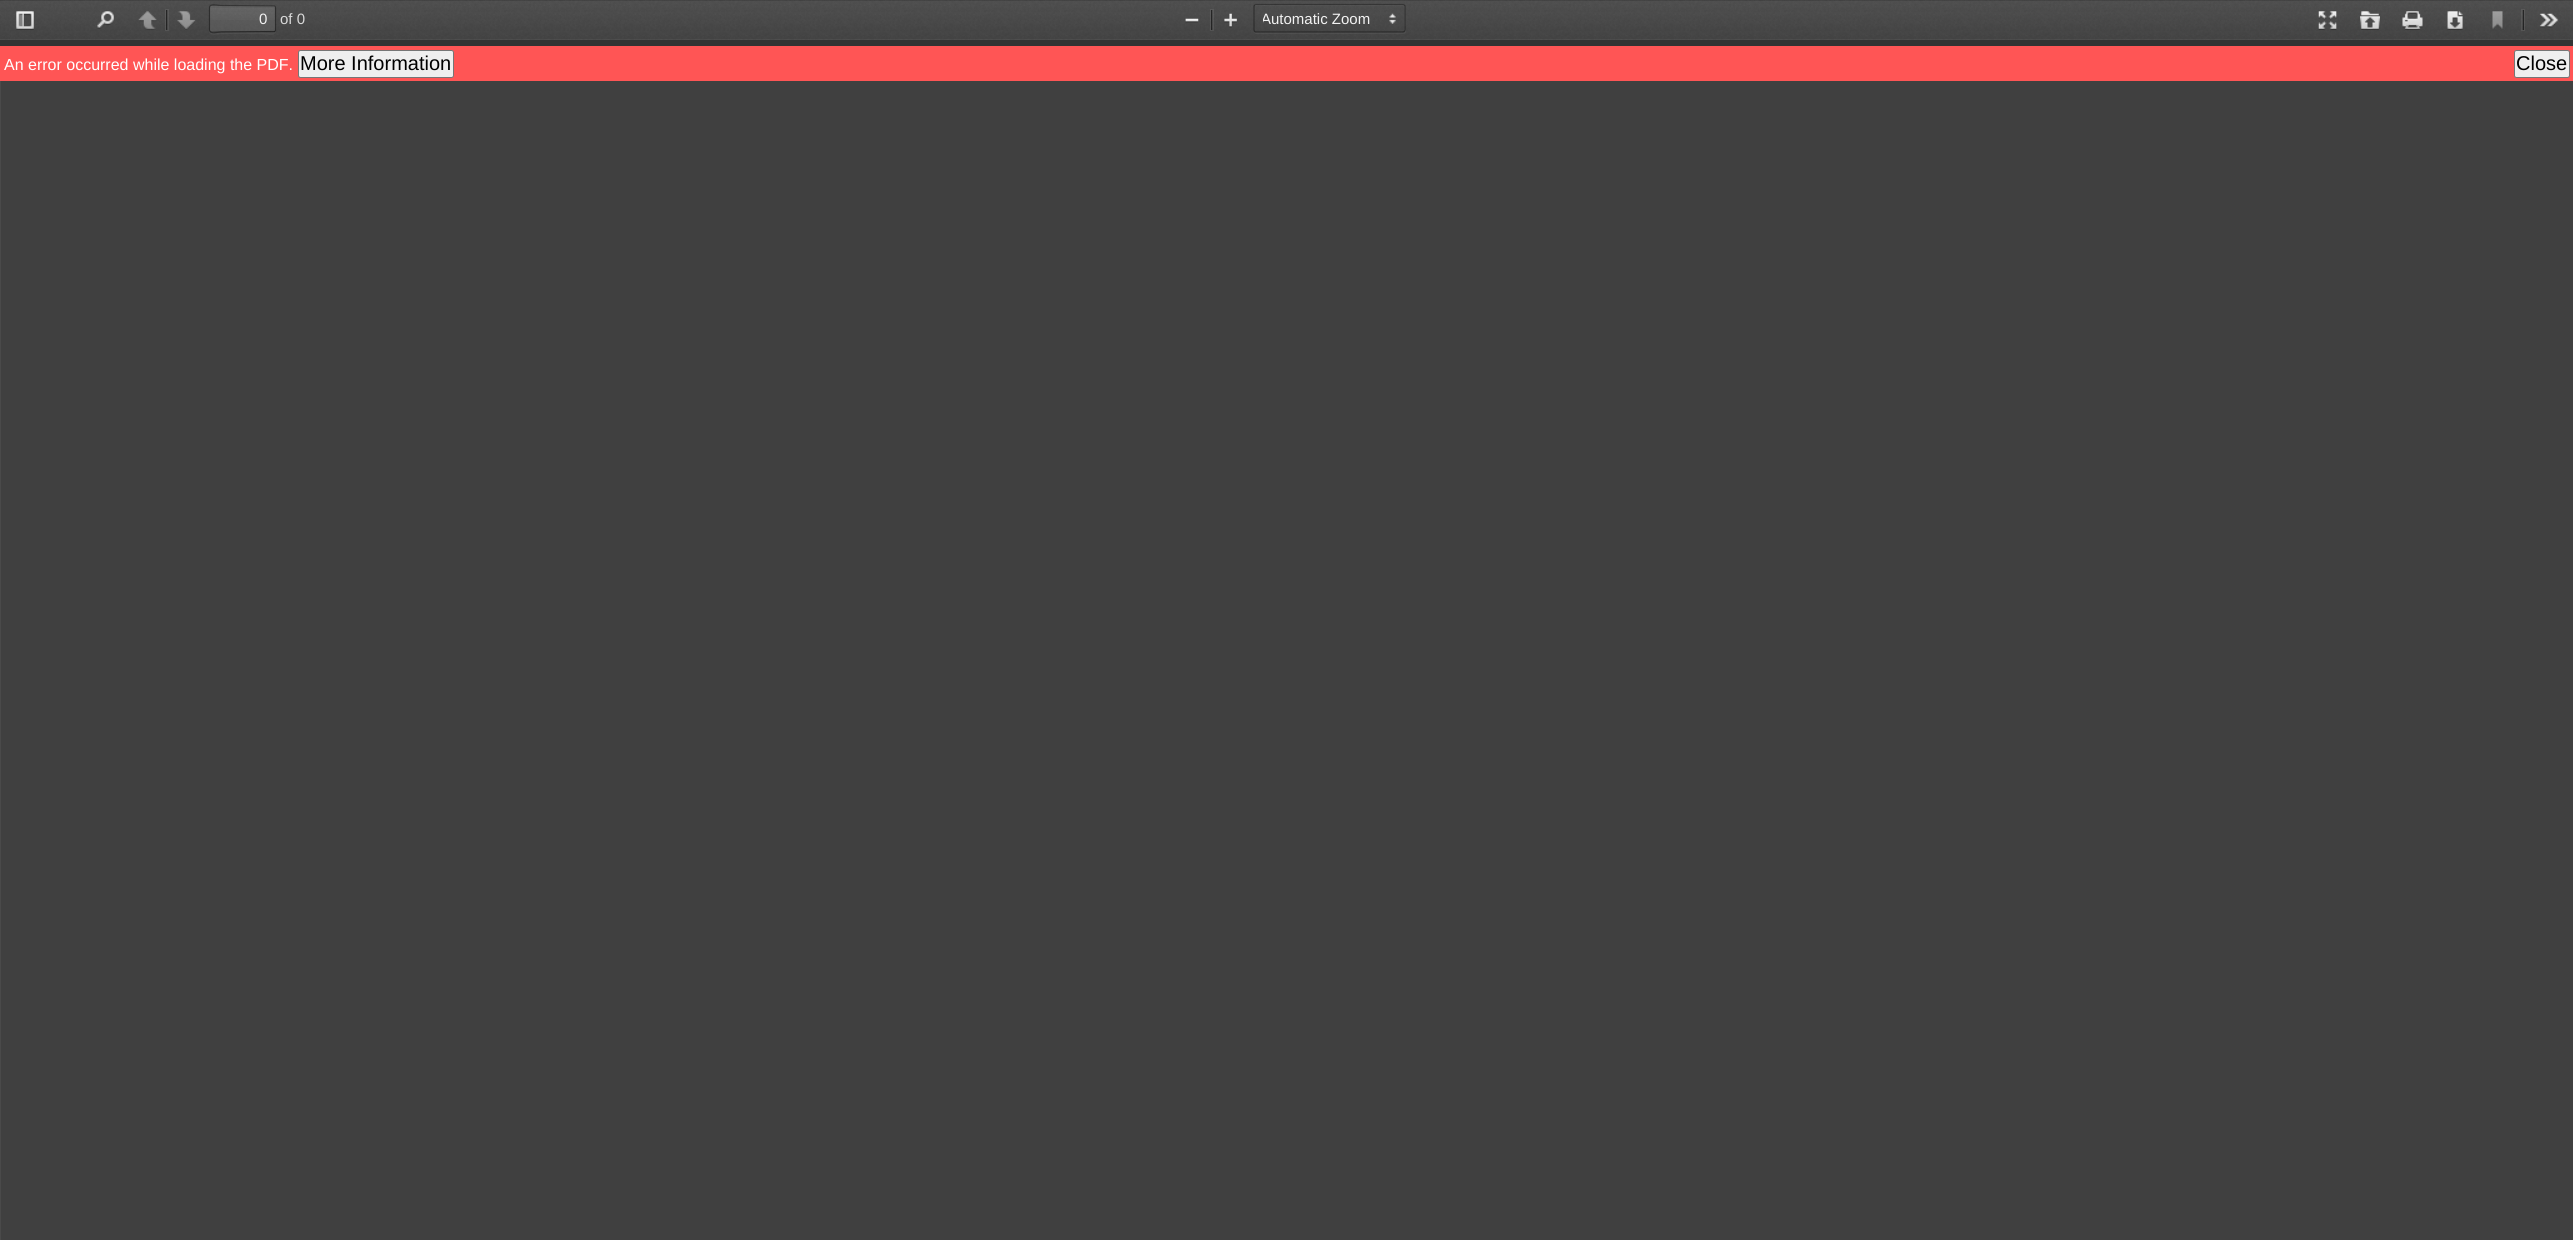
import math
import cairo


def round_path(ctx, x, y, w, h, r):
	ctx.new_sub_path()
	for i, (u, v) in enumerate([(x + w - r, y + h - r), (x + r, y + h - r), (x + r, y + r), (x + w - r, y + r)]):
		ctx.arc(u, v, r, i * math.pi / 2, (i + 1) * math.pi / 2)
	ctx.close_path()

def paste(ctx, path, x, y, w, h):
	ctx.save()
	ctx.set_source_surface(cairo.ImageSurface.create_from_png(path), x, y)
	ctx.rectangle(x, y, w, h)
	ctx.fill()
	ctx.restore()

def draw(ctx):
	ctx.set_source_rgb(0.251, 0.251, 0.251)
	ctx.paint()
	paste(ctx, 'media/1.png', 0, 0, 2573, 40)
	ctx.set_source_rgba(1, 1, 1, 0.05)
	ctx.rectangle(0, 39, 2573, 1)
	ctx.fill()
	ctx.set_source_rgba(0, 0, 0, 0.15)
	ctx.rectangle(0, 0, 2573, 1)
	ctx.fill()
	paste(ctx, 'media/2.png', 16, 11, 18, 19)
	paste(ctx, 'media/3.png', 97, 11, 17, 18)
	paste(ctx, 'media/4.png', 138, 11, 19, 19)
	ctx.rectangle(165.5, 9.5, 3, 21)
	ctx.set_source_rgba(1, 1, 1, 0.08)
	ctx.set_line_width(1)
	ctx.stroke()
	ctx.set_source_rgba(0, 0, 0, 0.5)
	ctx.rectangle(166, 10, 1, 20)
	ctx.fill()
	paste(ctx, 'media/5.png', 177, 11, 19, 19)
	ctx.set_source_rgba(1, 1, 1, 0.05)
	ctx.new_path()
	ctx.move_to(209, 31)
	ctx.curve_to(209, 37, 220, 34, 222, 34)
	ctx.line_to(263, 34)
	ctx.curve_to(265, 34, 276, 37, 276, 31)
	ctx.curve_to(274, 34, 265, 32, 263, 32)
	ctx.line_to(211, 32)
	ctx.close_path()
	ctx.fill()
	ctx.set_source_rgba(1, 1, 1, 0.09)
	ctx.rectangle(210, 6, 65, 25)
	ctx.fill()
	gradient = cairo.LinearGradient(243, 6.2, 243, 31)
	gradient.add_color_stop_rgba(0, 1, 1, 1, 0.05)
	gradient.add_color_stop_rgba(1, 1, 1, 1, 0)
	ctx.set_source(gradient)
	ctx.rectangle(210, 6, 65, 14)
	ctx.fill()
	ctx.set_source_rgba(0, 0, 0, 0.05)
	ctx.new_path()
	ctx.move_to(211, 8)
	ctx.line_to(274, 8)
	ctx.line_to(275, 9)
	ctx.curve_to(275, 3, 271, 6, 264, 6)
	ctx.line_to(222, 6)
	ctx.curve_to(214, 6, 210, 3, 210, 9)
	ctx.close_path()
	ctx.fill()
	ctx.new_path()
	ctx.move_to(210, 6)
	ctx.curve_to(212.5, 3.5, 217.5, 5.5, 221.5, 5.5)
	ctx.line_to(275, 6)
	ctx.set_source_rgba(0, 0, 0, 0.32)
	ctx.set_line_width(1.2)
	ctx.stroke()
	ctx.new_path()
	ctx.move_to(275, 6)
	ctx.line_to(275.5, 7.5)
	ctx.line_to(275.5, 30)
	ctx.line_to(275, 31.5)
	ctx.set_source_rgba(0, 0, 0, 0.38)
	ctx.stroke()
	ctx.new_path()
	ctx.move_to(275, 31.5)
	ctx.line_to(221.5, 32)
	ctx.curve_to(217.5, 32, 212.5, 34, 210, 31.5)
	ctx.set_source_rgba(0, 0, 0, 0.42)
	ctx.stroke()
	ctx.new_path()
	ctx.move_to(210, 31.5)
	ctx.line_to(209.5, 30)
	ctx.line_to(209.5, 7.5)
	ctx.line_to(210, 6)
	ctx.set_source_rgba(0, 0, 0, 0.38)
	ctx.stroke()
	ctx.select_font_face('Liberation Sans')
	ctx.set_font_size(15)
	ctx.set_source_rgb(0.949, 0.949, 0.949)
	ctx.move_to(259, 24)
	ctx.show_text('0')
	ctx.set_source_rgb(0.851, 0.851, 0.851)
	ctx.move_to(280, 24)
	ctx.show_text('of 0')
	paste(ctx, 'media/6.png', 1185, 18, 14, 5)
	ctx.rectangle(1210.5, 9.5, 3, 21)
	ctx.set_source_rgba(1, 1, 1, 0.08)
	ctx.set_line_width(1)
	ctx.stroke()
	ctx.set_source_rgba(0, 0, 0, 0.5)
	ctx.rectangle(1211, 10, 1, 20)
	ctx.fill()
	paste(ctx, 'media/7.png', 1224, 13, 13, 15)
	ctx.set_source_rgba(1, 1, 1, 0.05)
	ctx.new_path()
	ctx.move_to(1254, 32)
	ctx.curve_to(1254, 33, 1255, 34, 1256, 34)
	ctx.line_to(1404, 34)
	ctx.curve_to(1405, 34, 1406, 33, 1406, 32)
	ctx.line_to(1406, 8)
	ctx.line_to(1406, 6)
	ctx.line_to(1406, 26)
	ctx.curve_to(1406, 28, 1406, 32, 1403, 32)
	ctx.line_to(1255, 32)
	ctx.close_path()
	ctx.fill()
	paste(ctx, 'media/8.png', 1389, 13, 7, 11)
	ctx.new_path()
	ctx.move_to(1256, 6)
	ctx.line_to(1403, 6)
	ctx.curve_to(1404, 6, 1404, 7, 1404, 8)
	ctx.line_to(1404, 31)
	ctx.curve_to(1406, 31, 1405, 21, 1405, 6)
	ctx.line_to(1404, 5)
	ctx.line_to(1256, 5)
	ctx.curve_to(1255, 5, 1255, 6, 1255, 6)
	ctx.close_path()
	ctx.fill()
	ctx.new_path()
	ctx.move_to(1254.5, 5)
	ctx.line_to(1255.5, 4.5)
	ctx.line_to(1403, 4.5)
	ctx.line_to(1404.5, 5)
	ctx.set_source_rgba(0, 0, 0, 0.32)
	ctx.set_line_width(1.2)
	ctx.stroke()
	ctx.new_path()
	ctx.move_to(1404.5, 5)
	ctx.line_to(1405, 6)
	ctx.line_to(1405, 30)
	ctx.line_to(1404.5, 31.5)
	ctx.set_source_rgba(0, 0, 0, 0.38)
	ctx.stroke()
	ctx.new_path()
	ctx.move_to(1404.5, 31.5)
	ctx.line_to(1403, 32)
	ctx.line_to(1255.5, 32)
	ctx.line_to(1254.5, 31.5)
	ctx.set_source_rgba(0, 0, 0, 0.42)
	ctx.stroke()
	ctx.new_path()
	ctx.move_to(1254.5, 31.5)
	ctx.line_to(1254, 30)
	ctx.line_to(1254, 6.5)
	ctx.line_to(1254.5, 5)
	ctx.set_source_rgba(0, 0, 0, 0.38)
	ctx.stroke()
	ctx.save()
	ctx.rectangle(1263, 9, 147, 20)
	ctx.clip()
	ctx.set_source_rgb(0.949, 0.949, 0.949)
	ctx.move_to(1261, 24)
	ctx.show_text('Automatic Zoom')
	ctx.restore()
	paste(ctx, 'media/9.png', 2318, 11, 19, 19)
	paste(ctx, 'media/10.png', 2360, 11, 20, 19)
	paste(ctx, 'media/11.png', 2402, 11, 21, 19)
	paste(ctx, 'media/12.png', 2447, 11, 16, 19)
	paste(ctx, 'media/13.png', 2492, 11, 11, 18)
	ctx.rectangle(2521.5, 9.5, 3, 21)
	ctx.set_source_rgba(1, 1, 1, 0.08)
	ctx.set_line_width(1)
	ctx.stroke()
	ctx.set_source_rgba(0, 0, 0, 0.5)
	ctx.rectangle(2523, 10, 1, 20)
	ctx.fill()
	paste(ctx, 'media/14.png', 2539, 13, 20, 15)
	ctx.set_source_rgb(0.2, 0.2, 0.2)
	ctx.rectangle(0, 40, 2573, 6)
	ctx.fill()
	ctx.set_source_rgb(1, 0.333, 0.333)
	ctx.rectangle(0, 46, 2573, 35)
	ctx.fill()
	ctx.set_font_size(16)
	ctx.set_source_rgb(1, 1, 1)
	ctx.move_to(4, 70)
	ctx.show_text('An error occurred while loading the PDF.')
	ctx.set_source_rgb(0.937, 0.937, 0.937)
	round_path(ctx, 298.5, 50.5, 155, 27, 2)
	ctx.fill_preserve()
	ctx.set_source_rgb(0.463, 0.463, 0.463)
	ctx.stroke()
	ctx.set_font_size(20)
	ctx.set_source_rgb(0, 0, 0)
	ctx.move_to(300, 70)
	ctx.show_text('More Information')
	ctx.set_source_rgb(0.937, 0.937, 0.937)
	round_path(ctx, 2514.5, 50.5, 55, 27, 2)
	ctx.fill_preserve()
	ctx.set_source_rgb(0.463, 0.463, 0.463)
	ctx.stroke()
	ctx.set_source_rgb(0, 0, 0)
	ctx.move_to(2516, 70)
	ctx.show_text('Close')
	ctx.set_source_rgb(0.29, 0.29, 0.29)
	ctx.rectangle(0, 81, 1, 1159)
	ctx.fill()


surface = cairo.ImageSurface(cairo.FORMAT_RGB24, 2573, 1240)
ctx = cairo.Context(surface)
options = cairo.FontOptions()
options.set_hint_metrics(cairo.HINT_METRICS_OFF)
options.set_hint_style(cairo.HINT_STYLE_NONE)
ctx.set_font_options(options)
ctx.set_miter_limit(4)
draw(ctx)
surface.write_to_png('image.png')
